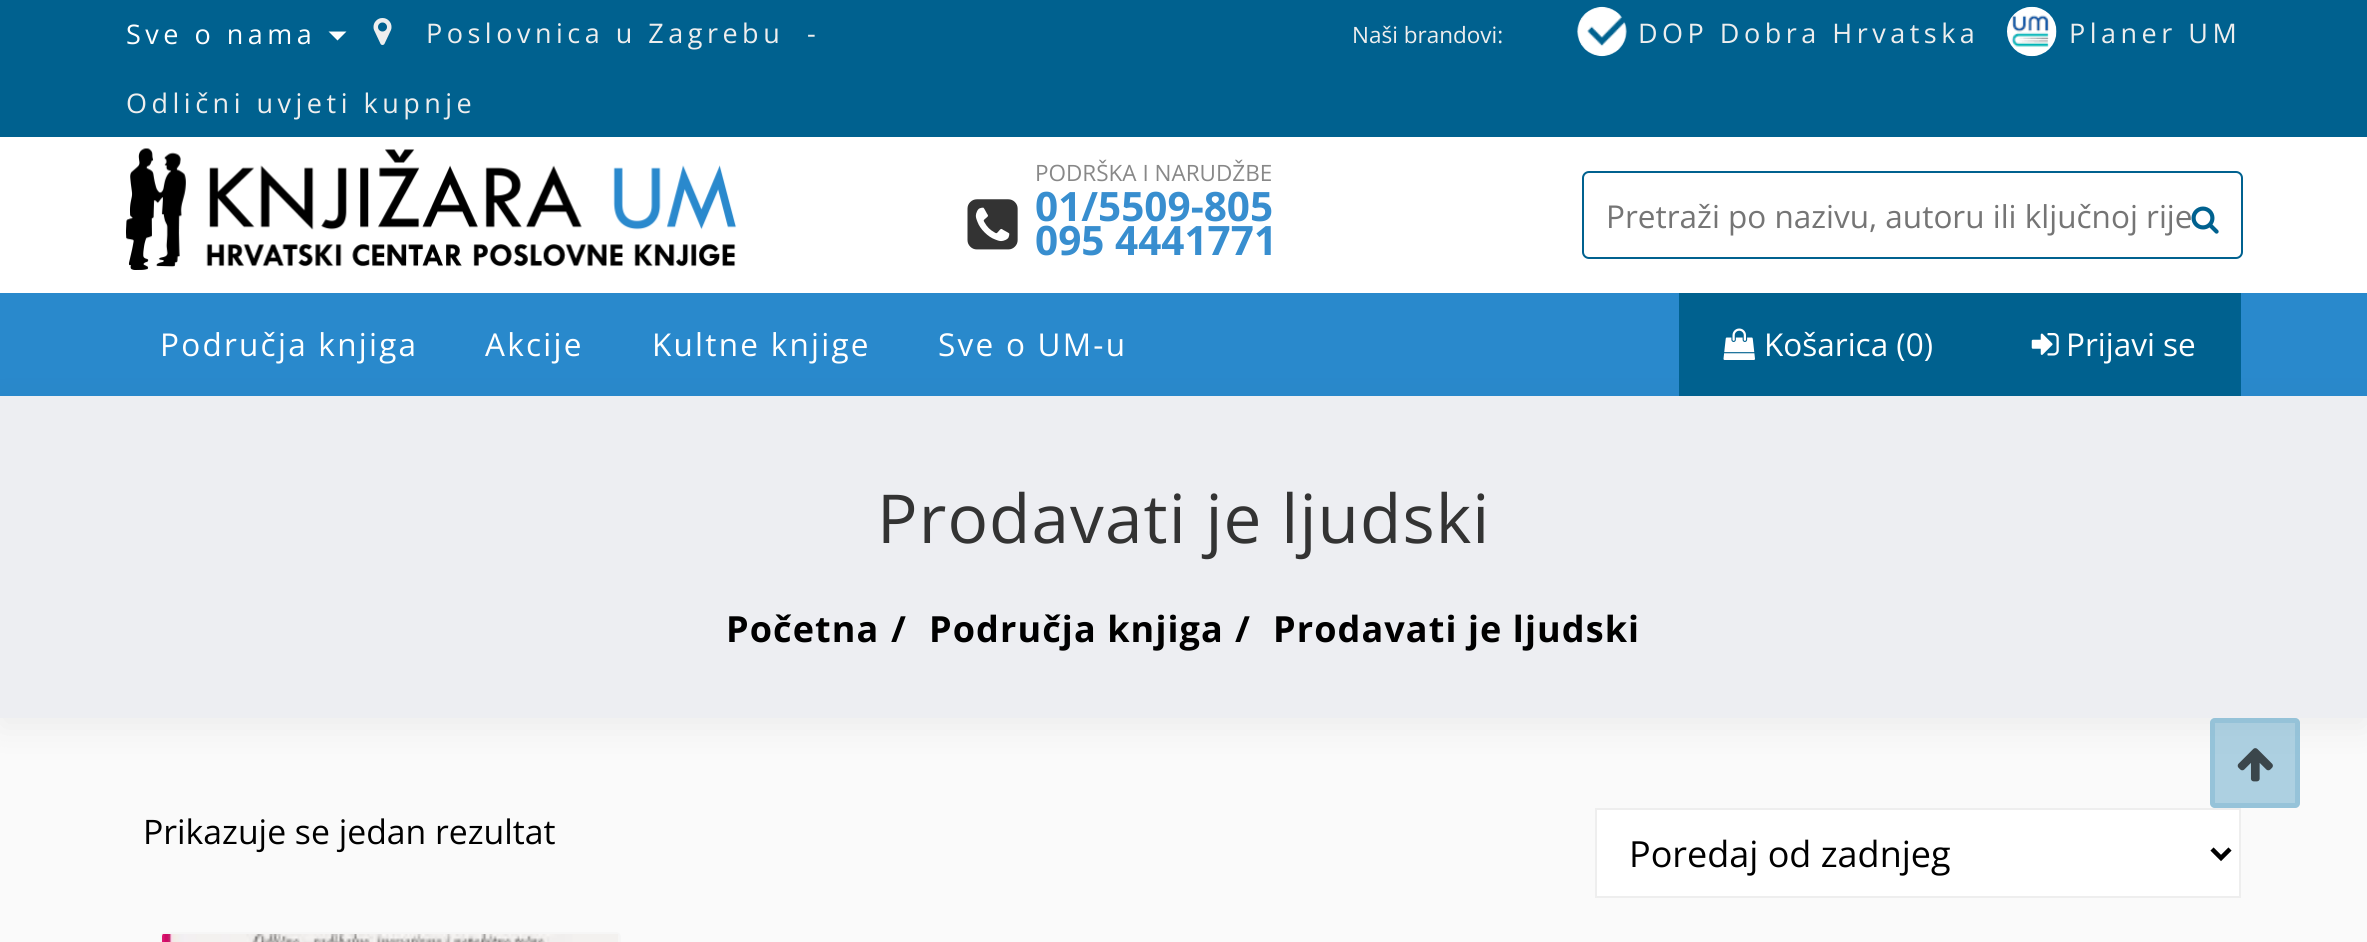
import math
import cairo


def write_spaced(ctx, x, y, s, letter, word):
	ctx.move_to(x, y)
	for ch in s:
		ctx.show_text(ch)
		ctx.rel_move_to(letter + word * (ch == ' '), 0)

def round_path(ctx, x, y, w, h, r):
	ctx.new_sub_path()
	for i, (u, v) in enumerate([(x + w - r, y + h - r), (x + r, y + h - r), (x + r, y + r), (x + w - r, y + r)]):
		ctx.arc(u, v, r, i * math.pi / 2, (i + 1) * math.pi / 2)
	ctx.close_path()

def blur_box(ctx, x, y, w, h, r, blur, alpha):
	ctx.push_group_with_content(cairo.CONTENT_ALPHA)
	ctx.set_operator(cairo.OPERATOR_SOURCE)
	for i in range(15, -16, -2):
		e = blur * i / 6
		if min(w, h) + 2 * e > 0:
			ctx.set_source_rgba(0, 0, 0, alpha * math.erfc((i - 1) / 8.5) / 2)
			round_path(ctx, x - e, y - e, w + 2 * e, h + 2 * e, max(0, min(r + e + blur * .6, min(w, h) / 2 + e)))
			ctx.fill()
	ctx.mask(ctx.pop_group())

def paste(ctx, path, x, y, w, h):
	ctx.save()
	ctx.set_source_surface(cairo.ImageSurface.create_from_png(path), x, y)
	ctx.rectangle(x, y, w, h)
	ctx.fill()
	ctx.restore()

def draw(ctx):
	ctx.set_source_rgb(0.98, 0.98, 0.98)
	ctx.paint()
	ctx.set_source_rgb(0, 0.38, 0.561)
	ctx.rectangle(0, 0, 2367, 137)
	ctx.fill()
	ctx.select_font_face('Open Sans')
	ctx.set_font_size(27)
	ctx.set_source_rgb(1, 1, 1)
	write_spaced(ctx, 126, 44, 'Sve o nama', 4.5, 0)
	ctx.new_path()
	ctx.move_to(328.5, 31.5)
	ctx.line_to(346.5, 31.5)
	ctx.line_to(337.5, 40.5)
	ctx.close_path()
	ctx.fill()
	paste(ctx, 'media/1.png', 373, 18, 19, 27)
	ctx.set_source_rgb(0.933, 0.933, 0.933)
	for x, y, s in [
		(426, 43, 'Poslovnica u Zagrebu'),
		(807, 43, '-'),
		(126, 113, 'Odlični uvjeti kupnje'),
	]:
		write_spaced(ctx, x, y, s, 4.5, 0)
	ctx.set_font_size(22.5)
	ctx.move_to(1352, 43)
	ctx.show_text('Naši brandovi:')
	paste(ctx, 'media/2.png', 1577, 6, 50, 51)
	ctx.set_font_size(27)
	write_spaced(ctx, 1638, 43, 'DOP Dobra Hrvatska', 4.5, 0)
	paste(ctx, 'media/3.png', 2007, 6, 50, 51)
	write_spaced(ctx, 2069, 43, 'Planer UM', 4.5, 0)
	ctx.set_source_rgb(1, 1, 1)
	ctx.rectangle(0, 137, 2367, 156)
	ctx.fill()
	paste(ctx, 'media/4.png', 126, 148, 611, 122)
	ctx.set_font_size(22.5)
	ctx.set_source_rgb(0.533, 0.533, 0.533)
	ctx.move_to(1035, 181)
	ctx.show_text('PODRŠKA I NARUDŽBE')
	paste(ctx, 'media/5.png', 967, 199, 51, 51)
	ctx.select_font_face('Open Sans', cairo.FONT_SLANT_NORMAL, cairo.FONT_WEIGHT_BOLD)
	ctx.set_font_size(40.5)
	ctx.set_source_rgb(0.22, 0.557, 0.812)
	ctx.move_to(1035, 221)
	ctx.show_text('01/5509-805')
	ctx.move_to(1035, 255)
	ctx.show_text('095 4441771')
	round_path(ctx, 1583, 172, 659, 86, 6)
	ctx.set_source_rgb(0, 0.38, 0.561)
	ctx.stroke()
	ctx.select_font_face('Open Sans')
	ctx.set_font_size(31.5)
	ctx.set_source_rgb(0.459, 0.459, 0.459)
	ctx.move_to(1606, 228)
	ctx.show_text('Pretraži po nazivu, autoru ili ključnoj rije')
	paste(ctx, 'media/6.png', 2191, 206, 28, 28)
	ctx.set_source_rgb(0.161, 0.537, 0.8)
	ctx.rectangle(0, 293, 2367, 103)
	ctx.fill()
	ctx.set_source_rgb(1, 1, 1)
	for x, y, s in [
		(160, 356, 'Područja knjiga'),
		(485, 356, 'Akcije'),
		(652, 356, 'Kultne knjige'),
		(938, 356, 'Sve o UM-u'),
	]:
		write_spaced(ctx, x, y, s, 2.25, 0)
	ctx.set_source_rgb(0, 0, 0)
	blur_box(ctx, 0, 405, 2367, 322, 0, 18, 0.06)
	ctx.set_source_rgb(0, 0.38, 0.561)
	ctx.rectangle(1679, 293, 562, 103)
	ctx.fill()
	paste(ctx, 'media/7.png', 1723, 328, 32, 32)
	ctx.set_source_rgb(1, 1, 1)
	ctx.move_to(1764, 356)
	ctx.show_text('Košarica (0)')
	paste(ctx, 'media/8.png', 2031, 333, 28, 23)
	ctx.move_to(2066, 356)
	ctx.show_text('Prijavi se')
	ctx.set_source_rgb(0.929, 0.933, 0.949)
	ctx.rectangle(0, 396, 2367, 322)
	ctx.fill()
	ctx.set_font_size(67.5)
	ctx.set_source_rgb(0.2, 0.2, 0.2)
	write_spaced(ctx, 877, 543, 'Prodavati je ljudski', 1.1, 0)
	ctx.select_font_face('Open Sans', cairo.FONT_SLANT_NORMAL, cairo.FONT_WEIGHT_BOLD)
	ctx.set_font_size(36)
	ctx.set_source_rgb(0, 0, 0)
	for x, y, s in [
		(726, 642, 'Početna'),
		(891, 642, '/'),
		(929, 642, 'Područja knjiga'),
		(1235, 642, '/'),
		(1273, 642, 'Prodavati je ljudski'),
	]:
		write_spaced(ctx, x, y, s, 1.1, 0)
	ctx.set_source_rgba(0.549, 0.745, 0.839, 0.7)
	round_path(ctx, 2210, 718, 90, 90, 5)
	ctx.fill()
	round_path(ctx, 2212.5, 720.5, 85, 85, 2.5)
	ctx.set_line_width(5)
	ctx.stroke()
	paste(ctx, 'media/9.png', 2237, 748, 36, 34)
	ctx.select_font_face('Open Sans')
	ctx.set_font_size(33.75)
	ctx.set_source_rgb(0, 0, 0)
	ctx.move_to(143, 844)
	ctx.show_text('Prikazuje se jedan rezultat')
	ctx.set_source_rgb(1, 1, 1)
	ctx.rectangle(1596, 809, 644, 88)
	ctx.fill_preserve()
	ctx.set_source_rgb(0.933, 0.933, 0.933)
	ctx.set_line_width(2)
	ctx.stroke()
	ctx.new_path()
	ctx.move_to(2212, 849)
	ctx.line_to(2221, 858)
	ctx.line_to(2230, 849)
	ctx.set_source_rgb(0, 0, 0)
	ctx.set_line_width(4.5)
	ctx.stroke()
	ctx.set_font_size(36)
	ctx.move_to(1629, 867)
	ctx.show_text('Poredaj od zadnjeg')
	round_path(ctx, 161, 933, 459, 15, 4)
	ctx.set_source_rgb(0.961, 0.961, 0.961)
	ctx.set_line_width(2)
	ctx.stroke()
	paste(ctx, 'media/10.png', 162, 934, 457, 8)


surface = cairo.ImageSurface(cairo.FORMAT_RGB24, 2367, 942)
ctx = cairo.Context(surface)
options = cairo.FontOptions()
options.set_hint_metrics(cairo.HINT_METRICS_OFF)
options.set_hint_style(cairo.HINT_STYLE_NONE)
ctx.set_font_options(options)
ctx.set_miter_limit(4)
draw(ctx)
surface.write_to_png('image.png')
